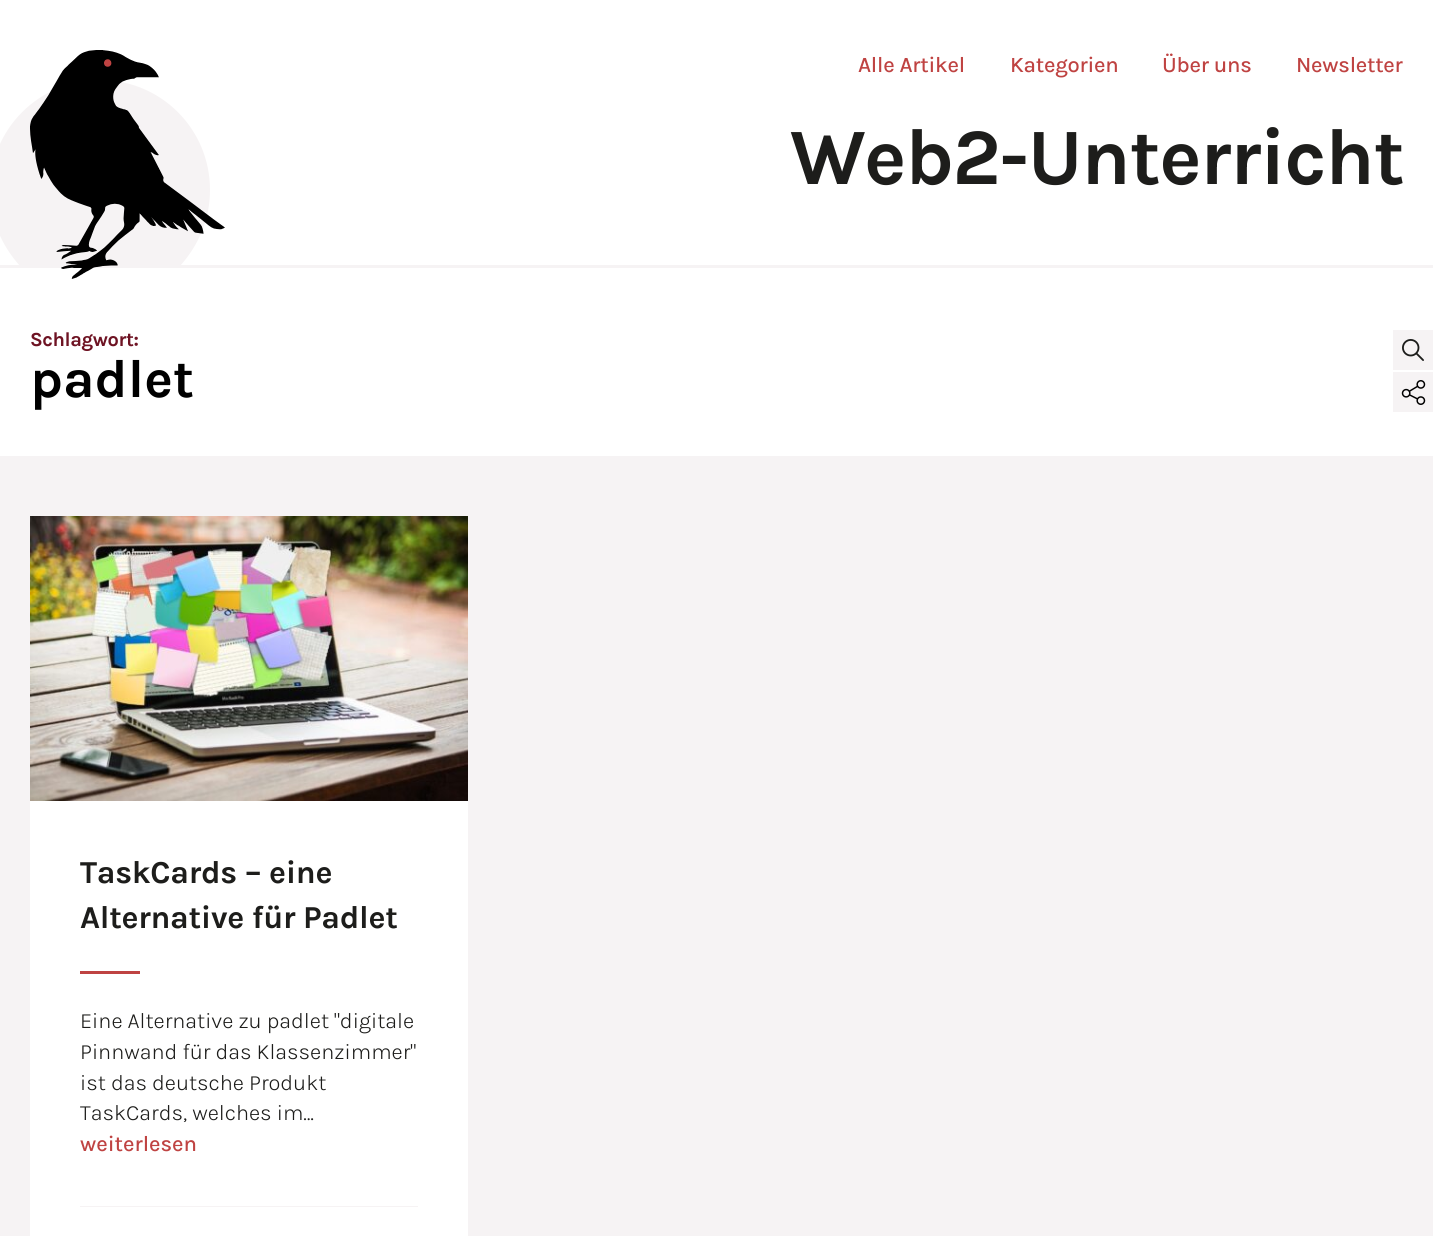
import math
import cairo


def write_spaced(ctx, x, y, s, letter, word):
	ctx.move_to(x, y)
	for ch in s:
		ctx.show_text(ch)
		ctx.rel_move_to(letter + word * (ch == ' '), 0)

def paste(ctx, path, x, y, w, h):
	ctx.save()
	ctx.set_source_surface(cairo.ImageSurface.create_from_png(path), x, y)
	ctx.rectangle(x, y, w, h)
	ctx.fill()
	ctx.restore()

def draw(ctx):
	ctx.set_source_rgb(1, 1, 1)
	ctx.paint()
	ctx.set_source_rgb(0.961, 0.953, 0.957)
	ctx.rectangle(0, 265, 1433, 3)
	ctx.fill()
	ctx.select_font_face('Karla Medium')
	ctx.set_font_size(22)
	ctx.set_source_rgb(0.749, 0.263, 0.259)
	for x, y, s in [
		(858, 72, 'Alle Artikel'),
		(1010, 72, 'Kategorien'),
		(1162, 72, 'Über uns'),
		(1296, 72, 'Newsletter'),
	]:
		write_spaced(ctx, x, y, s, -0.25, 0)
	ctx.set_source_rgb(0.961, 0.953, 0.957)
	ctx.new_path()
	ctx.move_to(180, 266)
	ctx.curve_to(198, 246, 210, 220, 210, 190)
	ctx.curve_to(210, 129, 161, 80, 100, 80)
	ctx.curve_to(39, 80, -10, 129, -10, 190)
	ctx.curve_to(-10, 220, 2, 246, 20, 266)
	ctx.close_path()
	ctx.fill()
	paste(ctx, 'media/1.png', 30, 50, 195, 229)
	ctx.select_font_face('Karla', cairo.FONT_SLANT_NORMAL, cairo.FONT_WEIGHT_BOLD)
	ctx.set_font_size(80)
	ctx.set_source_rgb(0.114, 0.114, 0.106)
	write_spaced(ctx, 790, 184, 'Web2-Unterricht', -1.6, 0)
	ctx.set_font_size(20)
	ctx.set_source_rgb(0.431, 0.078, 0.137)
	write_spaced(ctx, 30, 346, 'Schlagwort:', -0.4, 0)
	ctx.set_font_size(54)
	ctx.set_source_rgb(0, 0, 0)
	ctx.move_to(30, 397)
	ctx.show_text('padlet')
	ctx.set_source_rgb(0.961, 0.953, 0.957)
	ctx.rectangle(1393, 330, 40, 40)
	ctx.fill()
	paste(ctx, 'media/2.png', 1402, 339, 22, 22)
	ctx.rectangle(1393, 372, 40, 40)
	ctx.fill()
	paste(ctx, 'media/3.png', 1401, 380, 25, 25)
	ctx.rectangle(0, 456, 1433, 780)
	ctx.fill()
	ctx.set_source_rgb(1, 1, 1)
	ctx.rectangle(30, 801, 438, 435)
	ctx.fill()
	paste(ctx, 'media/4.png', 30, 516, 438, 285)
	ctx.set_font_size(32)
	ctx.set_source_rgb(0.114, 0.114, 0.106)
	write_spaced(ctx, 80, 883, 'TaskCards – eine', -0.3, 0)
	write_spaced(ctx, 80, 928, 'Alternative für Padlet', -0.3, 0)
	ctx.set_source_rgb(0.749, 0.263, 0.259)
	ctx.rectangle(80, 971, 60, 3)
	ctx.fill()
	ctx.select_font_face('Karla Light')
	ctx.set_font_size(22)
	ctx.set_source_rgb(0.114, 0.114, 0.106)
	for x, y, s in [
		(80, 1028, 'Eine Alternative zu padlet "digitale'),
		(80, 1059, 'Pinnwand für das Klassenzimmer"'),
		(80, 1090, 'ist das deutsche Produkt'),
		(80, 1120, 'TaskCards, welches im…'),
	]:
		ctx.move_to(x, y)
		ctx.show_text(s)
	ctx.select_font_face('Karla Medium')
	ctx.set_source_rgb(0.749, 0.263, 0.259)
	ctx.move_to(80, 1151)
	ctx.show_text('weiterlesen')
	ctx.set_source_rgb(0.961, 0.953, 0.957)
	ctx.rectangle(80, 1206, 338, 1)
	ctx.fill()


surface = cairo.ImageSurface(cairo.FORMAT_RGB24, 1433, 1236)
ctx = cairo.Context(surface)
options = cairo.FontOptions()
options.set_hint_metrics(cairo.HINT_METRICS_OFF)
options.set_hint_style(cairo.HINT_STYLE_NONE)
ctx.set_font_options(options)
ctx.set_miter_limit(4)
draw(ctx)
surface.write_to_png('image.png')
